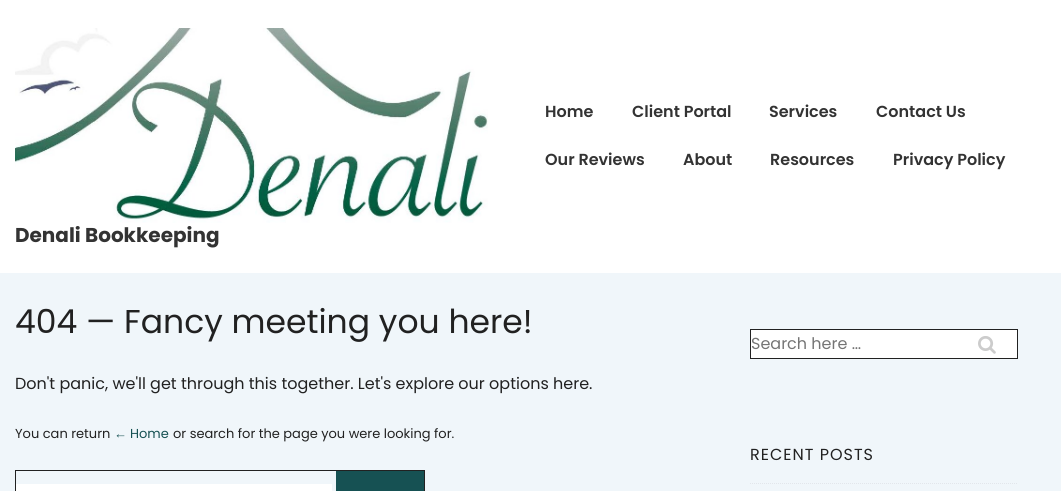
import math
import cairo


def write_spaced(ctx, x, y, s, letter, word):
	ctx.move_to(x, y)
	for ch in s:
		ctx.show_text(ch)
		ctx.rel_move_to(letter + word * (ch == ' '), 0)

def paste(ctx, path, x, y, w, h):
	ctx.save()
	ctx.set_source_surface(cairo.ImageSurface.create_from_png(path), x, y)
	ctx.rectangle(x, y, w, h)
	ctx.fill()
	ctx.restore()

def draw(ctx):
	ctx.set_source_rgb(0.941, 0.961, 0.98)
	ctx.paint()
	ctx.set_source_rgb(1, 1, 1)
	ctx.rectangle(0, 0, 1061, 273)
	ctx.fill()
	ctx.select_font_face('Poppins SemiBold')
	ctx.set_font_size(16)
	ctx.set_source_rgb(0.2, 0.2, 0.2)
	for x, y, s in [
		(545, 117, 'Home'),
		(632, 117, 'Client Portal'),
		(769, 117, 'Services'),
		(876, 117, 'Contact Us'),
		(545, 165, 'Our Reviews'),
		(683, 165, 'About'),
		(770, 165, 'Resources'),
		(893, 165, 'Privacy Policy'),
	]:
		ctx.move_to(x, y)
		ctx.show_text(s)
	paste(ctx, 'media/1.png', 15, 28, 473, 195)
	ctx.select_font_face('Poppins', cairo.FONT_SLANT_NORMAL, cairo.FONT_WEIGHT_BOLD)
	ctx.set_font_size(20)
	ctx.move_to(15, 242)
	ctx.show_text('Denali Bookkeeping')
	ctx.select_font_face('Poppins')
	ctx.set_font_size(33)
	ctx.set_source_rgb(0.129, 0.129, 0.129)
	ctx.move_to(15, 333)
	ctx.show_text('404 — Fancy meeting you here!')
	ctx.set_font_size(16)
	ctx.move_to(15, 389)
	ctx.show_text('Don\'t panic, we\'ll get through this together. Let\'s explore our options here.')
	ctx.set_font_size(13)
	ctx.move_to(15, 438)
	ctx.show_text('You can return')
	ctx.select_font_face('Liberation Sans')
	ctx.set_source_rgb(0.086, 0.318, 0.325)
	ctx.move_to(114, 438)
	ctx.show_text('←')
	ctx.select_font_face('Poppins')
	ctx.move_to(130, 438)
	ctx.show_text('Home')
	ctx.set_source_rgb(0.129, 0.129, 0.129)
	ctx.move_to(173, 438)
	ctx.show_text('or search for the page you were looking for.')
	ctx.rectangle(15.5, 470.5, 409, 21)
	ctx.set_line_width(1)
	ctx.stroke()
	ctx.set_source_rgb(1, 1, 1)
	ctx.rectangle(16, 484, 316, 7)
	ctx.fill()
	ctx.set_source_rgb(0.086, 0.318, 0.325)
	ctx.rectangle(336, 471, 88, 20)
	ctx.fill()
	ctx.rectangle(750.5, 329.5, 267, 29)
	ctx.set_source_rgb(0.129, 0.129, 0.129)
	ctx.stroke()
	ctx.set_source_rgb(1, 1, 1)
	ctx.rectangle(751, 330, 266, 28)
	ctx.fill()
	ctx.set_font_size(16)
	ctx.set_source_rgb(0.459, 0.459, 0.459)
	ctx.move_to(751, 349)
	ctx.show_text('Search here …')
	paste(ctx, 'media/2.png', 978, 336, 18, 18)
	ctx.set_source_rgb(0.129, 0.129, 0.129)
	write_spaced(ctx, 750, 460, 'RECENT POSTS', 1, 0)
	ctx.new_path()
	ctx.move_to(750, 483.5)
	ctx.line_to(1018, 483.5)
	ctx.set_source_rgb(0.886, 0.902, 0.918)
	ctx.set_dash([1, 1])
	ctx.stroke()


surface = cairo.ImageSurface(cairo.FORMAT_RGB24, 1061, 491)
ctx = cairo.Context(surface)
options = cairo.FontOptions()
options.set_hint_metrics(cairo.HINT_METRICS_OFF)
options.set_hint_style(cairo.HINT_STYLE_NONE)
ctx.set_font_options(options)
ctx.set_miter_limit(4)
draw(ctx)
surface.write_to_png('image.png')
